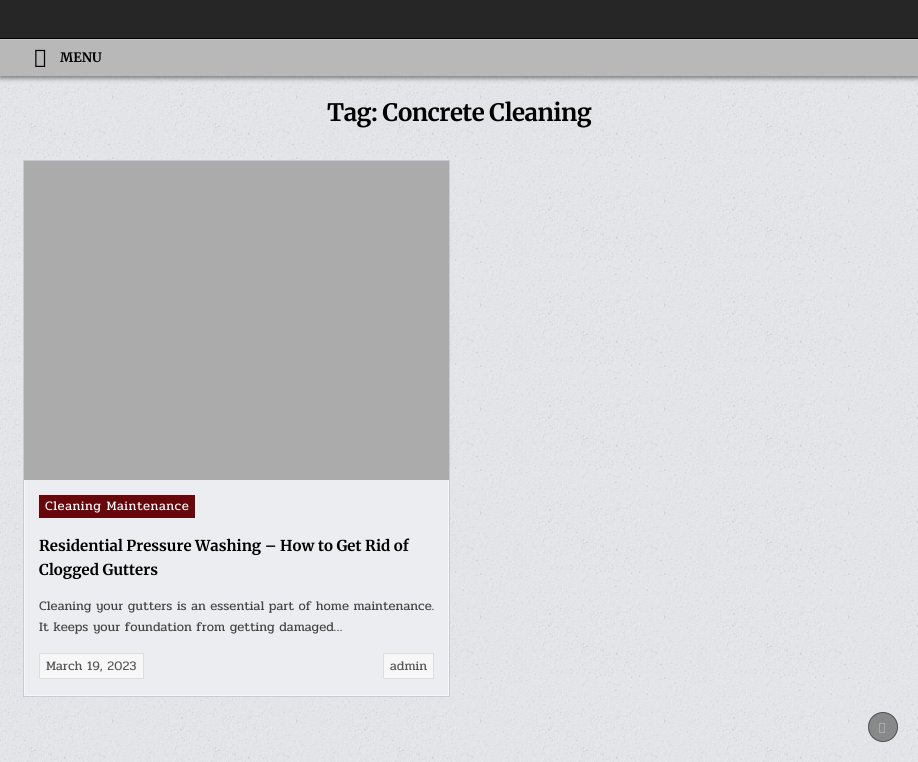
import math
import cairo


def write_spaced(ctx, x, y, s, letter, word):
	ctx.move_to(x, y)
	for ch in s:
		ctx.show_text(ch)
		ctx.rel_move_to(letter + word * (ch == ' '), 0)

def round_path(ctx, x, y, w, h, r):
	ctx.new_sub_path()
	for i, (u, v) in enumerate([(x + w - r, y + h - r), (x + r, y + h - r), (x + r, y + r), (x + w - r, y + r)]):
		ctx.arc(u, v, r, i * math.pi / 2, (i + 1) * math.pi / 2)
	ctx.close_path()

def blur_box(ctx, x, y, w, h, r, blur, alpha):
	ctx.push_group_with_content(cairo.CONTENT_ALPHA)
	ctx.set_operator(cairo.OPERATOR_SOURCE)
	for i in range(15, -16, -2):
		e = blur * i / 6
		if min(w, h) + 2 * e > 0:
			ctx.set_source_rgba(0, 0, 0, alpha * math.erfc((i - 1) / 8.5) / 2)
			round_path(ctx, x - e, y - e, w + 2 * e, h + 2 * e, max(0, min(r + e + blur * .6, min(w, h) / 2 + e)))
			ctx.fill()
	ctx.mask(ctx.pop_group())

def paste(ctx, path, x, y, w, h):
	ctx.save()
	ctx.set_source_surface(cairo.ImageSurface.create_from_png(path), x, y)
	ctx.rectangle(x, y, w, h)
	ctx.fill()
	ctx.restore()

def draw(ctx):
	ctx.set_source_rgb(0.894, 0.902, 0.914)
	ctx.paint()
	paste(ctx, 'media/1.png', 0, 76, 918, 686)
	ctx.set_source_rgb(0, 0, 0)
	blur_box(ctx, 0, 41, 918, 37, 0, 2.5, 0.5)
	ctx.set_source_rgb(0.149, 0.149, 0.149)
	ctx.rectangle(0, 0, 918, 38)
	ctx.fill()
	ctx.set_source_rgb(0, 0, 0)
	ctx.rectangle(0, 38, 918, 1)
	ctx.fill()
	ctx.set_source_rgb(0.722, 0.722, 0.722)
	ctx.rectangle(0, 40, 918, 36)
	ctx.fill()
	ctx.set_source_rgb(0.773, 0.773, 0.773)
	ctx.rectangle(0, 39, 918, 1)
	ctx.fill()
	paste(ctx, 'media/2.png', 35, 49, 11, 18)
	ctx.select_font_face('Merriweather', cairo.FONT_SLANT_NORMAL, cairo.FONT_WEIGHT_BOLD)
	ctx.set_font_size(13)
	ctx.set_source_rgb(0, 0, 0)
	ctx.move_to(60, 62)
	ctx.show_text('MENU')
	ctx.set_font_size(24)
	write_spaced(ctx, 327, 121, 'Tag: Concrete Cleaning', -0.5, 0)
	ctx.set_source_rgb(0.922, 0.929, 0.941)
	ctx.rectangle(25, 480, 423, 215)
	ctx.fill()
	ctx.rectangle(24.5, 161.5, 424, 534)
	ctx.set_source_rgb(0.961, 0.965, 0.969)
	ctx.set_line_width(1)
	ctx.stroke()
	ctx.rectangle(23.5, 160.5, 426, 536)
	ctx.set_source_rgb(0.784, 0.796, 0.839)
	ctx.stroke()
	ctx.set_source_rgb(0.671, 0.671, 0.671)
	ctx.rectangle(24, 161, 425, 319)
	ctx.fill()
	ctx.set_source_rgb(0.404, 0.031, 0.043)
	ctx.rectangle(39, 495, 156, 23)
	ctx.fill()
	ctx.select_font_face('Pridi')
	ctx.set_font_size(13)
	ctx.set_source_rgb(1, 1, 1)
	write_spaced(ctx, 45, 510, 'Cleaning Maintenance', 0.5, 0)
	ctx.select_font_face('Merriweather', cairo.FONT_SLANT_NORMAL, cairo.FONT_WEIGHT_BOLD)
	ctx.set_font_size(15)
	ctx.set_source_rgb(0, 0, 0)
	ctx.move_to(39, 551)
	ctx.show_text('Residential Pressure Washing – How to Get Rid of')
	ctx.move_to(39, 575)
	ctx.show_text('Clogged Gutters')
	ctx.select_font_face('Pridi')
	ctx.set_font_size(13)
	ctx.set_source_rgb(0.267, 0.267, 0.267)
	ctx.move_to(39, 610)
	ctx.show_text('Cleaning your gutters is an essential part of home maintenance.')
	ctx.move_to(39, 631)
	ctx.show_text('It keeps your foundation from getting damaged…')
	ctx.set_source_rgb(0.965, 0.965, 0.965)
	ctx.rectangle(39.5, 653.5, 104, 25)
	ctx.fill_preserve()
	ctx.set_source_rgb(0.867, 0.867, 0.867)
	ctx.stroke()
	ctx.set_source_rgb(0.333, 0.333, 0.333)
	ctx.move_to(46, 670)
	ctx.show_text('March 19, 2023')
	ctx.set_source_rgb(0.965, 0.965, 0.965)
	ctx.rectangle(383.5, 653.5, 50, 25)
	ctx.fill_preserve()
	ctx.set_source_rgb(0.867, 0.867, 0.867)
	ctx.stroke()
	ctx.set_source_rgb(0.333, 0.333, 0.333)
	ctx.move_to(390, 670)
	ctx.show_text('admin')
	ctx.set_source_rgba(0, 0, 0, 0.4)
	ctx.new_path()
	ctx.arc(883, 727, 15, 0, 2 * math.pi)
	ctx.fill()
	ctx.arc(883, 727, 14.5, 0, 2 * math.pi)
	ctx.stroke()
	paste(ctx, 'media/3.png', 879, 723, 6, 10)


surface = cairo.ImageSurface(cairo.FORMAT_RGB24, 918, 762)
ctx = cairo.Context(surface)
options = cairo.FontOptions()
options.set_hint_metrics(cairo.HINT_METRICS_OFF)
options.set_hint_style(cairo.HINT_STYLE_NONE)
ctx.set_font_options(options)
ctx.set_miter_limit(4)
draw(ctx)
surface.write_to_png('image.png')
